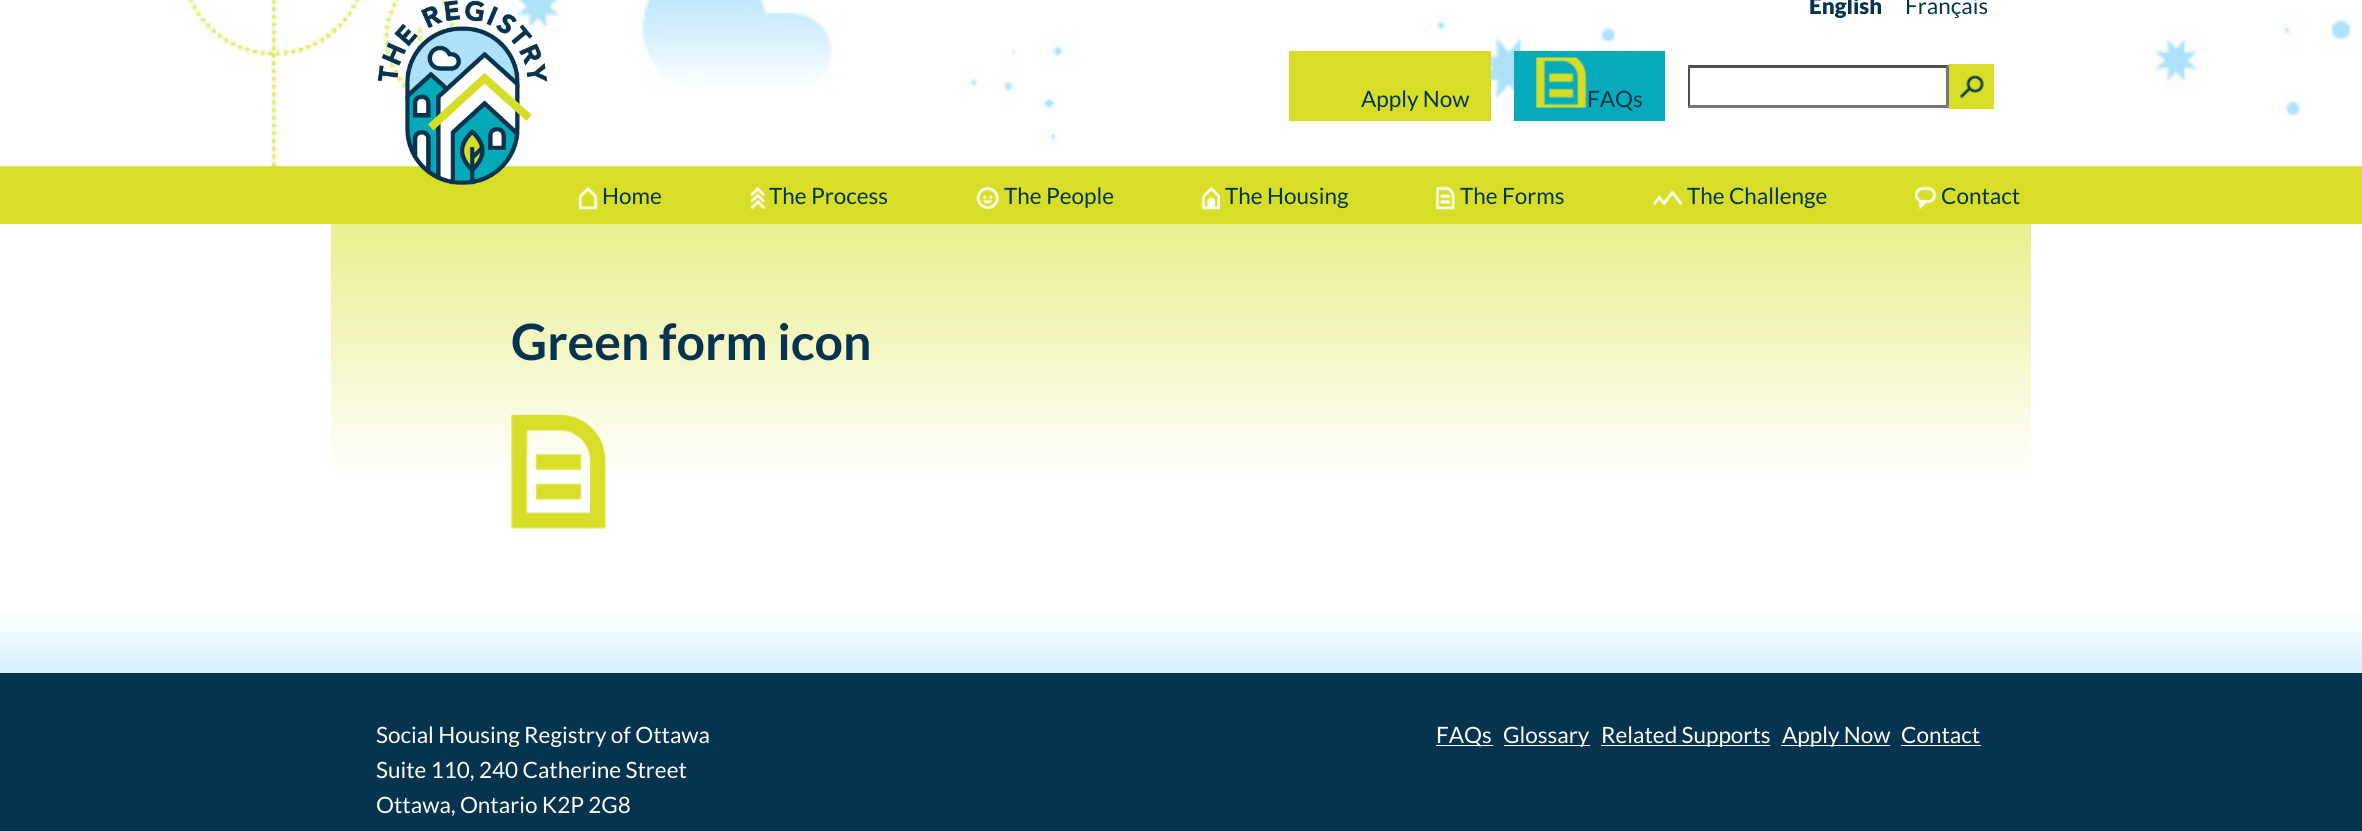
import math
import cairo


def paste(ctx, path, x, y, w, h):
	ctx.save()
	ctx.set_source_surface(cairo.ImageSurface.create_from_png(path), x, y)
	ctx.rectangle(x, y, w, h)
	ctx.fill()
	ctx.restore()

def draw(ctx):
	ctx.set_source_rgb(1, 1, 1)
	ctx.paint()
	ctx.set_source_rgb(0.843, 0.871, 0.153)
	ctx.rectangle(0, 166, 2362, 58)
	ctx.fill()
	paste(ctx, 'media/1.png', 0, 0, 2362, 167)
	paste(ctx, 'media/2.png', 377, 0, 171, 185)
	ctx.select_font_face('Lato Black')
	ctx.set_font_size(22.5)
	ctx.set_source_rgb(0.024, 0.204, 0.306)
	ctx.move_to(1809, 14)
	ctx.show_text('English')
	ctx.select_font_face('Lato')
	ctx.move_to(1905, 14)
	ctx.show_text('Français')
	ctx.set_source_rgb(0.843, 0.871, 0.153)
	ctx.rectangle(1289, 51, 202, 70)
	ctx.fill()
	ctx.set_source_rgb(0.024, 0.204, 0.306)
	ctx.move_to(1361, 107)
	ctx.show_text('Apply Now')
	ctx.set_source_rgb(0.027, 0.667, 0.729)
	ctx.rectangle(1514, 51, 151, 70)
	ctx.fill()
	paste(ctx, 'media/3.png', 1536, 57, 51, 51)
	ctx.set_source_rgb(0.024, 0.204, 0.306)
	ctx.move_to(1587, 107)
	ctx.show_text('FAQs')
	ctx.set_source_rgb(0.31, 0.31, 0.31)
	ctx.new_path()
	ctx.move_to(1688, 65)
	ctx.line_to(1949, 65)
	ctx.line_to(1946, 68)
	ctx.line_to(1690, 68)
	ctx.close_path()
	ctx.fill()
	ctx.set_source_rgb(0.463, 0.463, 0.463)
	ctx.new_path()
	ctx.move_to(1949, 65)
	ctx.line_to(1949, 108)
	ctx.line_to(1946, 105)
	ctx.line_to(1946, 68)
	ctx.close_path()
	ctx.fill()
	ctx.new_path()
	ctx.move_to(1949, 108)
	ctx.line_to(1688, 108)
	ctx.line_to(1690, 105)
	ctx.line_to(1946, 105)
	ctx.close_path()
	ctx.fill()
	ctx.set_source_rgb(0.31, 0.31, 0.31)
	ctx.new_path()
	ctx.move_to(1688, 108)
	ctx.line_to(1688, 65)
	ctx.line_to(1690, 68)
	ctx.line_to(1690, 105)
	ctx.close_path()
	ctx.fill()
	ctx.set_source_rgb(0.843, 0.871, 0.153)
	ctx.rectangle(1949, 64, 45, 45)
	ctx.fill()
	paste(ctx, 'media/4.png', 1960, 75, 24, 24)
	paste(ctx, 'media/5.png', 578, 186, 20, 24)
	ctx.set_source_rgb(0.024, 0.204, 0.306)
	ctx.move_to(602, 204)
	ctx.show_text('Home')
	paste(ctx, 'media/6.png', 750, 186, 15, 24)
	ctx.move_to(769, 204)
	ctx.show_text('The Process')
	paste(ctx, 'media/7.png', 976, 186, 23, 23)
	ctx.move_to(1004, 204)
	ctx.show_text('The People')
	paste(ctx, 'media/8.png', 1201, 186, 19, 24)
	ctx.move_to(1225, 204)
	ctx.show_text('The Housing')
	paste(ctx, 'media/9.png', 1436, 186, 19, 24)
	ctx.move_to(1460, 204)
	ctx.show_text('The Forms')
	paste(ctx, 'media/10.png', 1652, 190, 31, 17)
	ctx.move_to(1687, 204)
	ctx.show_text('The Challenge')
	paste(ctx, 'media/11.png', 1915, 186, 22, 24)
	ctx.move_to(1941, 204)
	ctx.show_text('Contact')
	gradient = cairo.LinearGradient(1181, 494, 1181, 224)
	gradient.add_color_stop_rgba(0, 1, 1, 1, 1)
	gradient.add_color_stop_rgba(0.05, 1, 1, 1, 1)
	gradient.add_color_stop_rgba(0.95, 0.922, 0.937, 0.576, 1)
	ctx.set_source(gradient)
	ctx.rectangle(331, 224, 1700, 251)
	ctx.fill()
	ctx.select_font_face('Lato', cairo.FONT_SLANT_NORMAL, cairo.FONT_WEIGHT_BOLD)
	ctx.set_font_size(50)
	ctx.set_source_rgb(0.024, 0.204, 0.306)
	ctx.move_to(511, 360)
	ctx.show_text('Green form icon')
	paste(ctx, 'media/12.png', 511, 415, 96, 114)
	gradient = cairo.LinearGradient(1181, 605, 1181, 673)
	gradient.add_color_stop_rgba(0, 1, 1, 1, 1)
	gradient.add_color_stop_rgba(0.05, 1, 1, 1, 1)
	gradient.add_color_stop_rgba(0.95, 0.843, 0.945, 0.992, 1)
	ctx.set_source(gradient)
	ctx.rectangle(0, 612, 2362, 61)
	ctx.fill()
	ctx.set_source_rgb(0.024, 0.204, 0.306)
	ctx.rectangle(0, 673, 2362, 158)
	ctx.fill()
	ctx.select_font_face('Lato')
	ctx.set_font_size(22.5)
	ctx.set_source_rgb(1, 1, 1)
	for x, y, s in [
		(376, 743, 'Social Housing Registry of Ottawa'),
		(376, 778, 'Suite 110, 240 Catherine Street'),
		(376, 813, 'Ottawa, Ontario K2P 2G8'),
	]:
		ctx.move_to(x, y)
		ctx.show_text(s)
	ctx.rectangle(1436, 745, 57, 1)
	ctx.fill()
	ctx.move_to(1436, 743)
	ctx.show_text('FAQs')
	ctx.rectangle(1504, 745, 86, 1)
	ctx.fill()
	ctx.move_to(1503, 743)
	ctx.show_text('Glossary')
	ctx.rectangle(1601, 745, 169, 1)
	ctx.fill()
	ctx.move_to(1601, 743)
	ctx.show_text('Related Supports')
	ctx.rectangle(1781, 745, 109, 1)
	ctx.fill()
	ctx.move_to(1782, 743)
	ctx.show_text('Apply Now')
	ctx.move_to(1901, 743)
	ctx.show_text('Contact')
	ctx.rectangle(1901, 745, 80, 1)
	ctx.fill()


surface = cairo.ImageSurface(cairo.FORMAT_RGB24, 2362, 831)
ctx = cairo.Context(surface)
options = cairo.FontOptions()
options.set_hint_metrics(cairo.HINT_METRICS_OFF)
options.set_hint_style(cairo.HINT_STYLE_NONE)
ctx.set_font_options(options)
ctx.set_miter_limit(4)
draw(ctx)
surface.write_to_png('image.png')
